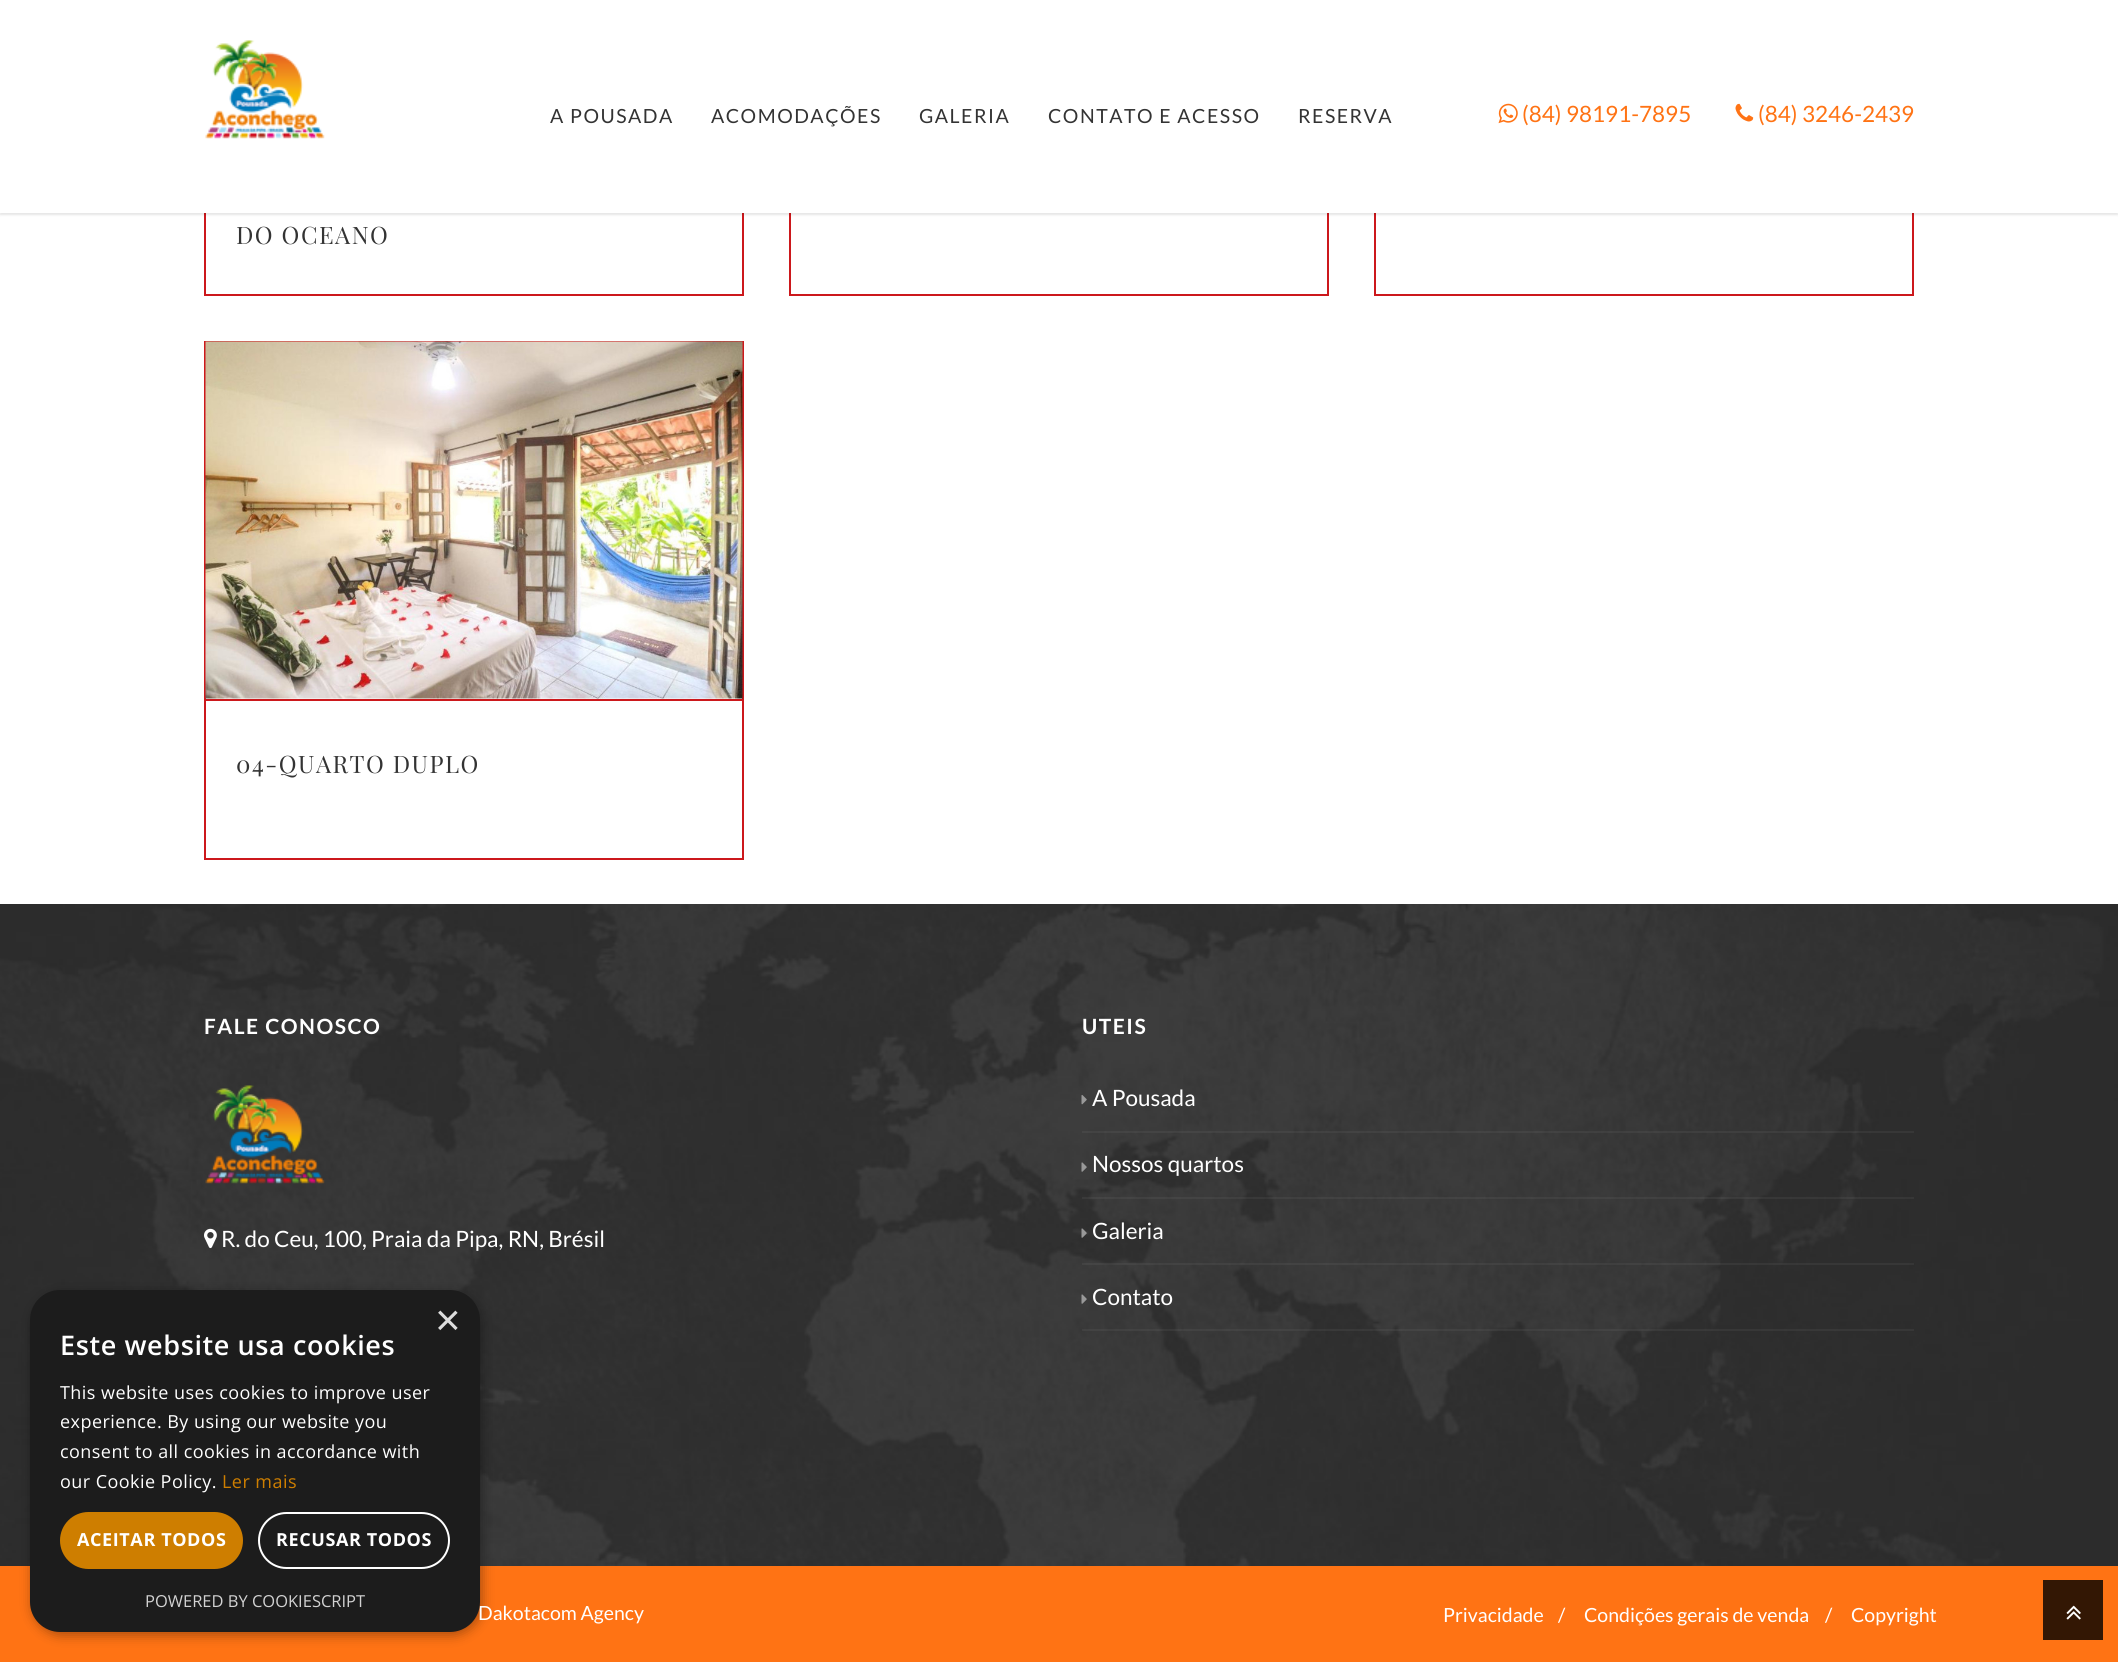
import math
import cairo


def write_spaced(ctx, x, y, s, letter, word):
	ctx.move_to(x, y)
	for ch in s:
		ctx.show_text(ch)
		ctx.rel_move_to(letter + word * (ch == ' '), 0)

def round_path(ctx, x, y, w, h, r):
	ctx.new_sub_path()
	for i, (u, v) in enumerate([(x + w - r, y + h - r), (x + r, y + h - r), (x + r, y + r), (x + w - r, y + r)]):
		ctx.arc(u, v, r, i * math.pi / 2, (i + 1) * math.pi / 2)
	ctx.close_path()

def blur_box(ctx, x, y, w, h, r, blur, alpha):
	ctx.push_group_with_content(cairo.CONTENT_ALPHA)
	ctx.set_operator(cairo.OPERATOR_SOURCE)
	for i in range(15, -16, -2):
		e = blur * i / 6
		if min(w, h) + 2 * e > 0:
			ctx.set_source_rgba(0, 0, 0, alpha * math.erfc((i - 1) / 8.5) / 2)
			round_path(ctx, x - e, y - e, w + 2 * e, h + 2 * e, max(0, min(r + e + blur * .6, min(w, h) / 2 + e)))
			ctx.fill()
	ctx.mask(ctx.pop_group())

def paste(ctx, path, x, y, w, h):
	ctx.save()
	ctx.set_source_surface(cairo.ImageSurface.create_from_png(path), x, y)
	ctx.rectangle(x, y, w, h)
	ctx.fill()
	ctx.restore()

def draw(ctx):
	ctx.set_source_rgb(1, 1, 1)
	ctx.paint()
	ctx.rectangle(205, -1, 538, 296)
	ctx.set_source_rgb(0.8, 0.094, 0.11)
	ctx.stroke()
	ctx.rectangle(790, -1, 538, 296)
	ctx.stroke()
	ctx.rectangle(1375, -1, 538, 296)
	ctx.stroke()
	ctx.set_source_rgb(0, 0, 0)
	blur_box(ctx, 0, 2, 2118, 213, 0, 1, 0.1)
	ctx.set_source_rgb(1, 1, 1)
	ctx.rectangle(0, 0, 2118, 213)
	ctx.fill()
	paste(ctx, 'media/1.png', 205, 40, 120, 99)
	ctx.select_font_face('Lato')
	ctx.set_font_size(19.5)
	ctx.set_source_rgb(0.2, 0.2, 0.2)
	for x, y, s in [
		(550, 123, 'A POUSADA'),
		(711, 123, 'ACOMODAÇÕES'),
		(919, 123, 'GALERIA'),
		(1048, 123, 'CONTATO E ACESSO'),
		(1298, 123, 'RESERVA'),
	]:
		write_spaced(ctx, x, y, s, 1.5, 0)
	paste(ctx, 'media/2.png', 1498, 103, 20, 21)
	ctx.set_font_size(22.5)
	ctx.set_source_rgb(1, 0.451, 0.082)
	ctx.move_to(1522, 122)
	ctx.show_text('(84) 98191-7895')
	paste(ctx, 'media/3.png', 1735, 103, 19, 19)
	ctx.move_to(1758, 122)
	ctx.show_text('(84) 3246-2439')
	ctx.select_font_face('Playfair Display')
	ctx.set_font_size(24)
	ctx.set_source_rgb(0.2, 0.2, 0.2)
	write_spaced(ctx, 236, 244, 'DO OCEANO', 1.5, 0)
	ctx.rectangle(205, 342, 538, 517)
	ctx.set_source_rgb(0.8, 0.094, 0.11)
	ctx.stroke()
	paste(ctx, 'media/4.png', 205, 341, 538, 358)
	paste(ctx, 'media/5.png', 456, 515, 38, 23)
	ctx.rectangle(206, 699, 537, 2)
	ctx.fill()
	ctx.set_source_rgb(0.2, 0.2, 0.2)
	write_spaced(ctx, 236, 773, '04-QUARTO DUPLO', 1.5, 0)
	paste(ctx, 'media/6.png', 0, 904, 2118, 662)
	ctx.select_font_face('Lato', cairo.FONT_SLANT_NORMAL, cairo.FONT_WEIGHT_BOLD)
	ctx.set_font_size(21)
	ctx.set_source_rgb(1, 1, 1)
	write_spaced(ctx, 204, 1034, 'FALE CONOSCO', 1.5, 0)
	paste(ctx, 'media/7.png', 205, 1085, 120, 99)
	paste(ctx, 'media/8.png', 204, 1228, 13, 21)
	ctx.select_font_face('Lato')
	ctx.set_font_size(22.5)
	ctx.move_to(221, 1247)
	ctx.show_text('R. do Ceu, 100, Praia da Pipa, RN, Brésil')
	ctx.select_font_face('Lato', cairo.FONT_SLANT_NORMAL, cairo.FONT_WEIGHT_BOLD)
	ctx.set_font_size(21)
	write_spaced(ctx, 1082, 1034, 'UTEIS', 1.5, 0)
	ctx.set_source_rgba(1, 1, 1, 0.05)
	ctx.rectangle(1082, 1131, 832, 2)
	ctx.fill()
	paste(ctx, 'media/9.png', 1081, 1095, 6, 10)
	ctx.select_font_face('Lato')
	ctx.set_font_size(22.5)
	ctx.set_source_rgb(1, 1, 1)
	ctx.move_to(1092, 1106)
	ctx.show_text('A Pousada')
	ctx.set_source_rgba(1, 1, 1, 0.05)
	ctx.rectangle(1082, 1197, 832, 2)
	ctx.fill()
	paste(ctx, 'media/10.png', 1081, 1162, 6, 10)
	ctx.set_source_rgb(1, 1, 1)
	ctx.move_to(1092, 1172)
	ctx.show_text('Nossos quartos')
	ctx.set_source_rgba(1, 1, 1, 0.05)
	ctx.rectangle(1082, 1263, 832, 2)
	ctx.fill()
	paste(ctx, 'media/11.png', 1081, 1228, 6, 10)
	ctx.set_source_rgb(1, 1, 1)
	ctx.move_to(1092, 1239)
	ctx.show_text('Galeria')
	ctx.set_source_rgba(1, 1, 1, 0.05)
	ctx.rectangle(1082, 1329, 832, 2)
	ctx.fill()
	paste(ctx, 'media/12.png', 1081, 1294, 6, 10)
	ctx.set_source_rgb(1, 1, 1)
	ctx.move_to(1092, 1305)
	ctx.show_text('Contato')
	ctx.set_source_rgb(1, 0.451, 0.082)
	ctx.rectangle(0, 1566, 2118, 96)
	ctx.fill()
	ctx.set_source_rgb(0, 0, 0)
	blur_box(ctx, 32, 1293, 450, 342, 30, 6, 0.35)
	ctx.set_font_size(19.5)
	ctx.set_source_rgb(1, 1, 1)
	ctx.move_to(478, 1620)
	ctx.show_text('Dakotacom Agency')
	ctx.set_source_rgb(0.11, 0.11, 0.11)
	round_path(ctx, 30, 1290, 450, 342, 30)
	ctx.fill()
	ctx.select_font_face('Liberation Sans')
	ctx.set_font_size(44)
	ctx.set_source_rgb(0.867, 0.867, 0.867)
	ctx.move_to(435, 1335)
	ctx.show_text('×')
	ctx.select_font_face('Open Sans SemiBold')
	ctx.set_font_size(27)
	ctx.set_source_rgb(1, 1, 1)
	write_spaced(ctx, 60, 1355, 'Este website usa cookies', 0.6, 0)
	ctx.select_font_face('Open Sans')
	ctx.set_font_size(18)
	for x, y, s in [
		(60, 1399, 'This website uses cookies to improve user'),
		(60, 1428, 'experience. By using our website you'),
		(60, 1458, 'consent to all cookies in accordance with'),
		(60, 1488, 'our Cookie Policy.'),
	]:
		write_spaced(ctx, x, y, s, 0.45, 0)
	ctx.set_source_rgb(0.808, 0.494, 0)
	write_spaced(ctx, 222, 1488, 'Ler mais', 0.45, 0)
	round_path(ctx, 60, 1512, 183, 57, 28.5)
	ctx.fill()
	ctx.select_font_face('Open Sans', cairo.FONT_SLANT_NORMAL, cairo.FONT_WEIGHT_BOLD)
	ctx.set_source_rgb(1, 1, 1)
	write_spaced(ctx, 77, 1546, 'ACEITAR TODOS', 0.6, 0)
	round_path(ctx, 259, 1513, 190, 55, 27.5)
	ctx.stroke()
	write_spaced(ctx, 276, 1546, 'RECUSAR TODOS', 0.6, 0)
	ctx.select_font_face('Open Sans')
	ctx.set_font_size(16.5)
	ctx.set_source_rgb(0.824, 0.824, 0.824)
	ctx.move_to(145, 1607)
	ctx.show_text('POWERED BY COOKIESCRIPT')
	ctx.select_font_face('Lato')
	ctx.set_font_size(19.5)
	ctx.set_source_rgb(1, 1, 1)
	for x, y, s in [
		(1443, 1622, 'Privacidade'),
		(1558, 1622, '/'),
		(1584, 1622, 'Condições gerais de venda'),
		(1825, 1622, '/'),
		(1851, 1622, 'Copyright'),
	]:
		ctx.move_to(x, y)
		ctx.show_text(s)
	ctx.set_source_rgb(0.2, 0.09, 0.016)
	ctx.rectangle(2043, 1580, 60, 60)
	ctx.fill()
	paste(ctx, 'media/13.png', 2066, 1605, 15, 15)


surface = cairo.ImageSurface(cairo.FORMAT_RGB24, 2118, 1662)
ctx = cairo.Context(surface)
options = cairo.FontOptions()
options.set_hint_metrics(cairo.HINT_METRICS_OFF)
options.set_hint_style(cairo.HINT_STYLE_NONE)
ctx.set_font_options(options)
ctx.set_miter_limit(4)
draw(ctx)
surface.write_to_png('image.png')
